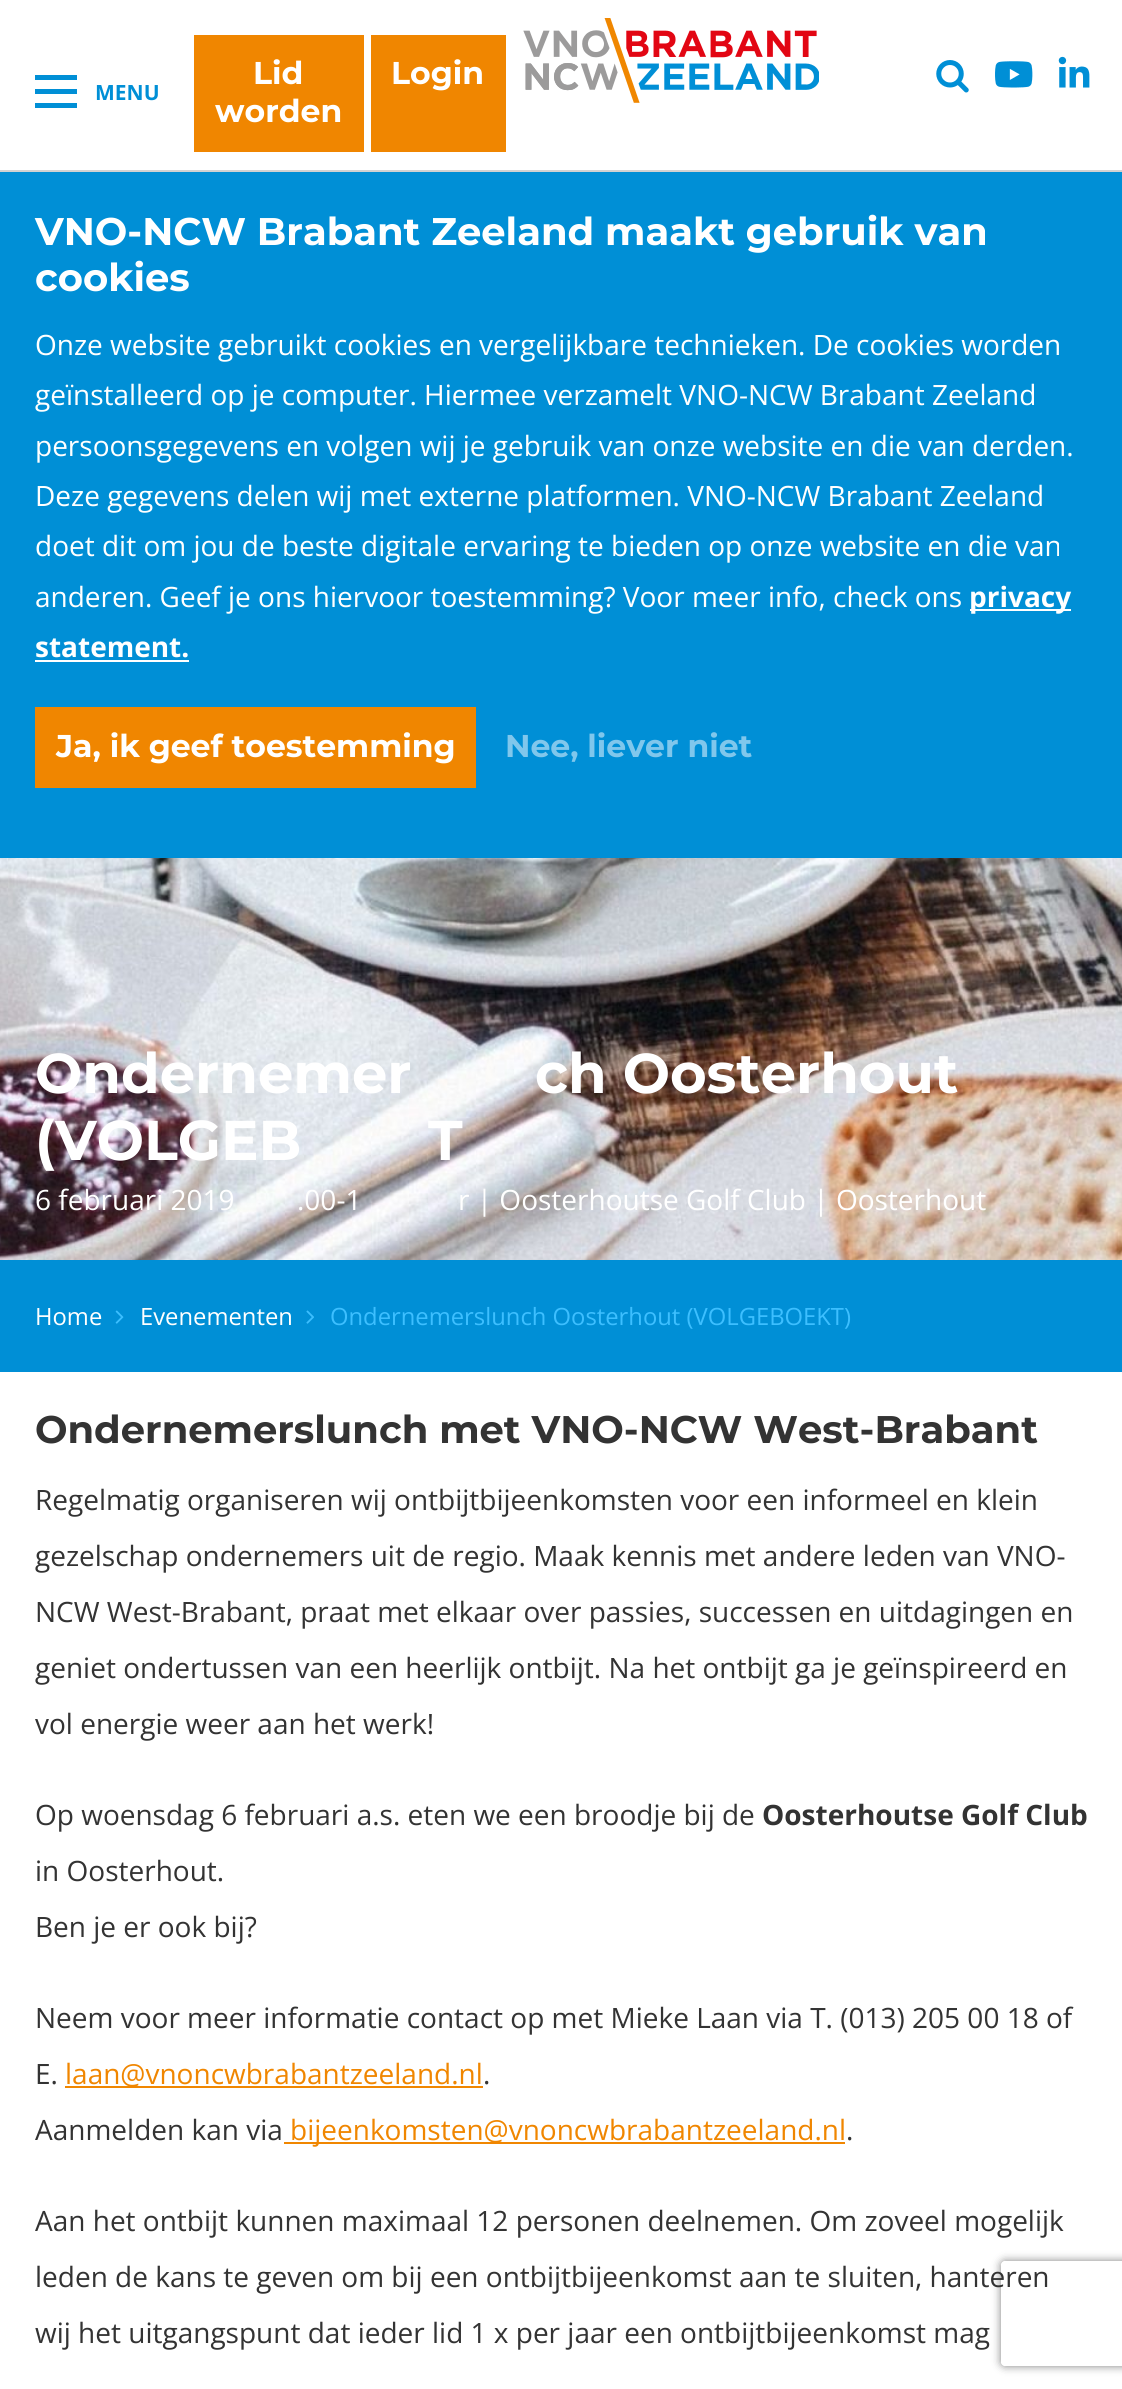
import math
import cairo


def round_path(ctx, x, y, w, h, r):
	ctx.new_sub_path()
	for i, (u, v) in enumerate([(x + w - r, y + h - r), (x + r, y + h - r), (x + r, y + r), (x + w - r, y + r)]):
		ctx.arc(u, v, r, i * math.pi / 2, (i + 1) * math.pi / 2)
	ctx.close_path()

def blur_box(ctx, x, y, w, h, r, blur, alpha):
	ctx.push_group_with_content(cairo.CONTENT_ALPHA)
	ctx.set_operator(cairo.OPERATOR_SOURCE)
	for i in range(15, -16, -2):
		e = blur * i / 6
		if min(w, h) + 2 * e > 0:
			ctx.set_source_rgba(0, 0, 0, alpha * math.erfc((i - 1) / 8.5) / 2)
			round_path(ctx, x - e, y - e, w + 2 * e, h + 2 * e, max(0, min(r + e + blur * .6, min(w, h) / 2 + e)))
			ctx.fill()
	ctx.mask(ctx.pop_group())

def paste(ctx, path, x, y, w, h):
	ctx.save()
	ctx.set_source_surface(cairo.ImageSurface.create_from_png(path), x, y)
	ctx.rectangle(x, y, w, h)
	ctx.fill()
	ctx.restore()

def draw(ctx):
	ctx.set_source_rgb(1, 1, 1)
	ctx.paint()
	ctx.set_source_rgb(0.824, 0.824, 0.824)
	ctx.rectangle(0, 170, 1122, 2)
	ctx.fill()
	ctx.set_source_rgb(0.941, 0.525, 0)
	ctx.rectangle(194, 35, 170, 117)
	ctx.fill()
	ctx.select_font_face('Montserrat', cairo.FONT_SLANT_NORMAL, cairo.FONT_WEIGHT_BOLD)
	ctx.set_font_size(31.5)
	ctx.set_source_rgb(1, 1, 1)
	ctx.move_to(253, 84)
	ctx.show_text('Lid')
	ctx.move_to(215, 122)
	ctx.show_text('worden')
	ctx.set_source_rgb(0.941, 0.525, 0)
	ctx.rectangle(371, 35, 135, 117)
	ctx.fill()
	ctx.set_source_rgb(1, 1, 1)
	ctx.move_to(391, 84)
	ctx.show_text('Login')
	ctx.set_source_rgb(0, 0.561, 0.839)
	ctx.rectangle(35, 89, 42, 5)
	ctx.rectangle(35, 75, 42, 5)
	ctx.rectangle(35, 103, 42, 5)
	ctx.fill()
	ctx.select_font_face('Open Sans', cairo.FONT_SLANT_NORMAL, cairo.FONT_WEIGHT_BOLD)
	ctx.set_font_size(21)
	ctx.move_to(95, 100)
	ctx.show_text('MENU')
	paste(ctx, 'media/1.png', 523, 18, 296, 85)
	paste(ctx, 'media/2.png', 936, 60, 33, 33)
	paste(ctx, 'media/3.png', 995, 61, 38, 27)
	paste(ctx, 'media/4.png', 1058, 56, 32, 32)
	ctx.rectangle(0, 172, 1122, 686)
	ctx.fill()
	ctx.select_font_face('Montserrat', cairo.FONT_SLANT_NORMAL, cairo.FONT_WEIGHT_BOLD)
	ctx.set_font_size(38.5)
	ctx.set_source_rgb(1, 1, 1)
	ctx.move_to(35, 245)
	ctx.show_text('VNO-NCW Brabant Zeeland maakt gebruik van')
	ctx.move_to(35, 291)
	ctx.show_text('cookies')
	ctx.select_font_face('Open Sans')
	ctx.set_font_size(28)
	for x, y, s in [
		(35, 355, 'Onze website gebruikt cookies en vergelijkbare technieken. De cookies worden'),
		(35, 405, 'geïnstalleerd op je computer. Hiermee verzamelt VNO-NCW Brabant Zeeland'),
		(35, 456, 'persoonsgegevens en volgen wij je gebruik van onze website en die van derden.'),
		(35, 506, 'Deze gegevens delen wij met externe platformen. VNO-NCW Brabant Zeeland'),
		(35, 556, 'doet dit om jou de beste digitale ervaring te bieden op onze website en die van'),
		(35, 607, 'anderen. Geef je ons hiervoor toestemming? Voor meer info, check ons'),
	]:
		ctx.move_to(x, y)
		ctx.show_text(s)
	ctx.rectangle(970, 609, 101, 2)
	ctx.fill()
	ctx.select_font_face('Open Sans', cairo.FONT_SLANT_NORMAL, cairo.FONT_WEIGHT_BOLD)
	ctx.move_to(969, 607)
	ctx.show_text('privacy')
	ctx.move_to(35, 657)
	ctx.show_text('statement.')
	ctx.rectangle(35, 660, 154, 2)
	ctx.fill()
	ctx.set_source_rgb(0.941, 0.525, 0)
	ctx.rectangle(35, 707, 441, 81)
	ctx.fill()
	ctx.select_font_face('Montserrat', cairo.FONT_SLANT_NORMAL, cairo.FONT_WEIGHT_BOLD)
	ctx.set_font_size(31.5)
	ctx.set_source_rgb(1, 1, 1)
	ctx.move_to(56, 757)
	ctx.show_text('Ja, ik geef toestemming')
	ctx.set_source_rgb(0.502, 0.78, 0.922)
	ctx.move_to(505, 757)
	ctx.show_text('Nee, liever niet')
	paste(ctx, 'media/5.png', 0, 858, 1122, 402)
	ctx.set_font_size(56)
	ctx.set_source_rgb(1, 1, 1)
	for x, y, s in [
		(35, 1093, 'Ondernemer'),
		(535, 1093, 'ch Oosterhout'),
		(35, 1160, '(VOLGEB'),
		(428, 1160, 'T'),
	]:
		ctx.move_to(x, y)
		ctx.show_text(s)
	ctx.select_font_face('Open Sans')
	ctx.set_font_size(28)
	for x, y, s in [
		(35, 1210, '6 februari 2019'),
		(297, 1210, '.00-1'),
		(458, 1210, 'r | Oosterhoutse Golf Club | Oosterhout'),
	]:
		ctx.move_to(x, y)
		ctx.show_text(s)
	ctx.set_source_rgb(0, 0.561, 0.839)
	ctx.rectangle(0, 1260, 1122, 112)
	ctx.fill()
	ctx.set_font_size(23.8)
	ctx.set_source_rgb(1, 1, 1)
	ctx.move_to(35, 1325)
	ctx.show_text('Home')
	paste(ctx, 'media/6.png', 115, 1310, 9, 14)
	ctx.move_to(140, 1325)
	ctx.show_text('Evenementen')
	paste(ctx, 'media/7.png', 306, 1310, 8, 14)
	ctx.set_source_rgb(0.239, 0.749, 1)
	ctx.move_to(330, 1325)
	ctx.show_text('Ondernemerslunch Oosterhout (VOLGEBOEKT)')
	ctx.select_font_face('Montserrat', cairo.FONT_SLANT_NORMAL, cairo.FONT_WEIGHT_BOLD)
	ctx.set_font_size(38.5)
	ctx.set_source_rgb(0.2, 0.2, 0.2)
	ctx.move_to(35, 1443)
	ctx.show_text('Ondernemerslunch met VNO-NCW West-Brabant')
	ctx.select_font_face('Open Sans')
	ctx.set_font_size(28)
	for x, y, s in [
		(35, 1510, 'Regelmatig organiseren wij ontbijtbijeenkomsten voor een informeel en klein'),
		(35, 1566, 'gezelschap ondernemers uit de regio. Maak kennis met andere leden van VNO-'),
		(35, 1622, 'NCW West-Brabant, praat met elkaar over passies, successen en uitdagingen en'),
		(35, 1678, 'geniet ondertussen van een heerlijk ontbijt. Na het ontbijt ga je geïnspireerd en'),
		(35, 1734, 'vol energie weer aan het werk!'),
		(35, 1825, 'Op woensdag 6 februari a.s. eten we een broodje bij de'),
	]:
		ctx.move_to(x, y)
		ctx.show_text(s)
	ctx.select_font_face('Open Sans', cairo.FONT_SLANT_NORMAL, cairo.FONT_WEIGHT_BOLD)
	ctx.move_to(762, 1825)
	ctx.show_text('Oosterhoutse Golf Club')
	ctx.select_font_face('Open Sans')
	for x, y, s in [
		(35, 1881, 'in Oosterhout.'),
		(35, 1937, 'Ben je er ook bij?'),
		(35, 2028, 'Neem voor meer informatie contact op met Mieke Laan via T. (013) 205 00 18 of'),
		(35, 2084, 'E.'),
	]:
		ctx.move_to(x, y)
		ctx.show_text(s)
	ctx.set_source_rgb(0.941, 0.525, 0)
	ctx.rectangle(65, 2086, 418, 2)
	ctx.fill()
	ctx.move_to(65, 2084)
	ctx.show_text('laan@vnoncwbrabantzeeland.nl')
	ctx.set_source_rgb(0.2, 0.2, 0.2)
	ctx.move_to(483, 2084)
	ctx.show_text('.')
	ctx.move_to(35, 2140)
	ctx.show_text('Aanmelden kan via')
	ctx.set_source_rgb(0.941, 0.525, 0)
	ctx.rectangle(284, 2142, 561, 2)
	ctx.fill()
	ctx.move_to(290, 2140)
	ctx.show_text('bijeenkomsten@vnoncwbrabantzeeland.nl')
	ctx.set_source_rgb(0.2, 0.2, 0.2)
	ctx.move_to(846, 2140)
	ctx.show_text('.')
	ctx.move_to(35, 2231)
	ctx.show_text('Aan het ontbijt kunnen maximaal 12 personen deelnemen. Om zoveel mogelijk')
	ctx.save()
	ctx.set_fill_rule(cairo.FILL_RULE_EVEN_ODD)
	ctx.new_path()
	ctx.move_to(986, 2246)
	ctx.line_to(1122, 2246)
	ctx.line_to(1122, 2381)
	ctx.line_to(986, 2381)
	ctx.close_path()
	ctx.move_to(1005, 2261)
	ctx.line_to(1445, 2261)
	ctx.curve_to(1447, 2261, 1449, 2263, 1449, 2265)
	ctx.line_to(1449, 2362)
	ctx.curve_to(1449, 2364, 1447, 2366, 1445, 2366)
	ctx.line_to(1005, 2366)
	ctx.curve_to(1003, 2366, 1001, 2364, 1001, 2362)
	ctx.line_to(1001, 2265)
	ctx.curve_to(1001, 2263, 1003, 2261, 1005, 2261)
	ctx.close_path()
	ctx.clip()
	ctx.set_source_rgb(0.502, 0.502, 0.502)
	blur_box(ctx, 1001, 2261, 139, 105, 4, 4.5, 1)
	ctx.restore()
	ctx.move_to(35, 2287)
	ctx.show_text('leden de kans te geven om bij een ontbijtbijeenkomst aan te sluiten, hanteren')
	ctx.move_to(35, 2343)
	ctx.show_text('wij het uitgangspunt dat ieder lid 1 x per jaar een ontbijtbijeenkomst mag')


surface = cairo.ImageSurface(cairo.FORMAT_RGB24, 1122, 2389)
ctx = cairo.Context(surface)
options = cairo.FontOptions()
options.set_hint_metrics(cairo.HINT_METRICS_OFF)
options.set_hint_style(cairo.HINT_STYLE_NONE)
ctx.set_font_options(options)
ctx.set_miter_limit(4)
draw(ctx)
surface.write_to_png('image.png')
